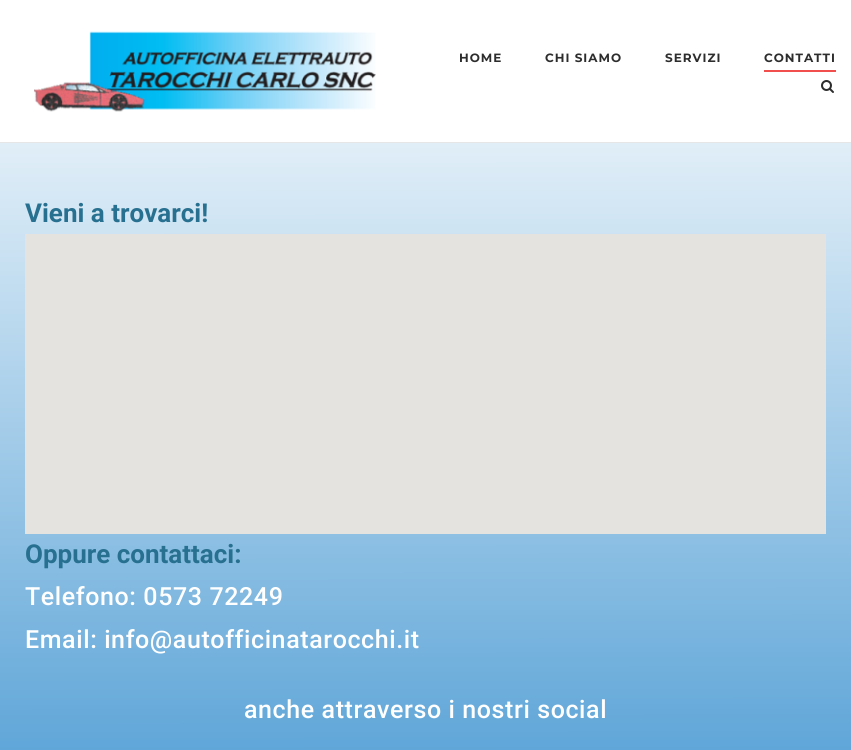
import math
import cairo


def write_spaced(ctx, x, y, s, letter, word):
	ctx.move_to(x, y)
	for ch in s:
		ctx.show_text(ch)
		ctx.rel_move_to(letter + word * (ch == ' '), 0)

def paste(ctx, path, x, y, w, h):
	ctx.save()
	ctx.set_source_surface(cairo.ImageSurface.create_from_png(path), x, y)
	ctx.rectangle(x, y, w, h)
	ctx.fill()
	ctx.restore()

def draw(ctx):
	ctx.set_source_rgb(1, 1, 1)
	ctx.paint()
	gradient = cairo.LinearGradient(425, 0, 426, 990)
	gradient.add_color_stop_rgba(0, 1, 1, 1, 1)
	gradient.add_color_stop_rgba(1, 0.176, 0.541, 0.8, 1)
	ctx.set_source(gradient)
	ctx.rectangle(0, 143, 851, 607)
	ctx.fill()
	ctx.set_source_rgb(0.902, 0.902, 0.902)
	ctx.rectangle(0, 142, 851, 1)
	ctx.fill()
	paste(ctx, 'media/1.png', 34, 31, 342, 81)
	ctx.select_font_face('Montserrat', cairo.FONT_SLANT_NORMAL, cairo.FONT_WEIGHT_BOLD)
	ctx.set_font_size(12)
	ctx.set_source_rgb(0.176, 0.176, 0.176)
	for x, y, s in [
		(459, 62, 'HOME'),
		(545, 62, 'CHI SIAMO'),
		(665, 62, 'SERVIZI'),
	]:
		write_spaced(ctx, x, y, s, 1, 0)
	ctx.set_source_rgb(0.945, 0.306, 0.306)
	ctx.rectangle(764, 70, 72, 2)
	ctx.fill()
	ctx.set_source_rgb(0.176, 0.176, 0.176)
	write_spaced(ctx, 764, 62, 'CONTATTI', 1, 0)
	paste(ctx, 'media/2.png', 821, 80, 13, 13)
	ctx.select_font_face('Roboto', cairo.FONT_SLANT_NORMAL, cairo.FONT_WEIGHT_BOLD)
	ctx.set_font_size(26)
	ctx.set_source_rgb(0.157, 0.439, 0.561)
	ctx.move_to(25, 222)
	ctx.show_text('Vieni a trovarci!')
	ctx.set_source_rgb(0.898, 0.89, 0.875)
	ctx.rectangle(25, 234, 801, 300)
	ctx.fill()
	ctx.set_source_rgb(0.157, 0.439, 0.561)
	ctx.move_to(25, 563)
	ctx.show_text('Oppure contattaci:')
	ctx.select_font_face('Roboto Medium')
	ctx.set_font_size(25)
	ctx.set_source_rgb(1, 1, 1)
	for x, y, s in [
		(25, 605, 'Telefono: 0573 72249'),
		(25, 648, 'Email: info@autofficinatarocchi.it'),
		(244, 718, 'anche attraverso i nostri social'),
	]:
		write_spaced(ctx, x, y, s, 0.6, 0)


surface = cairo.ImageSurface(cairo.FORMAT_RGB24, 851, 750)
ctx = cairo.Context(surface)
options = cairo.FontOptions()
options.set_hint_metrics(cairo.HINT_METRICS_OFF)
options.set_hint_style(cairo.HINT_STYLE_NONE)
ctx.set_font_options(options)
ctx.set_miter_limit(4)
draw(ctx)
surface.write_to_png('image.png')
